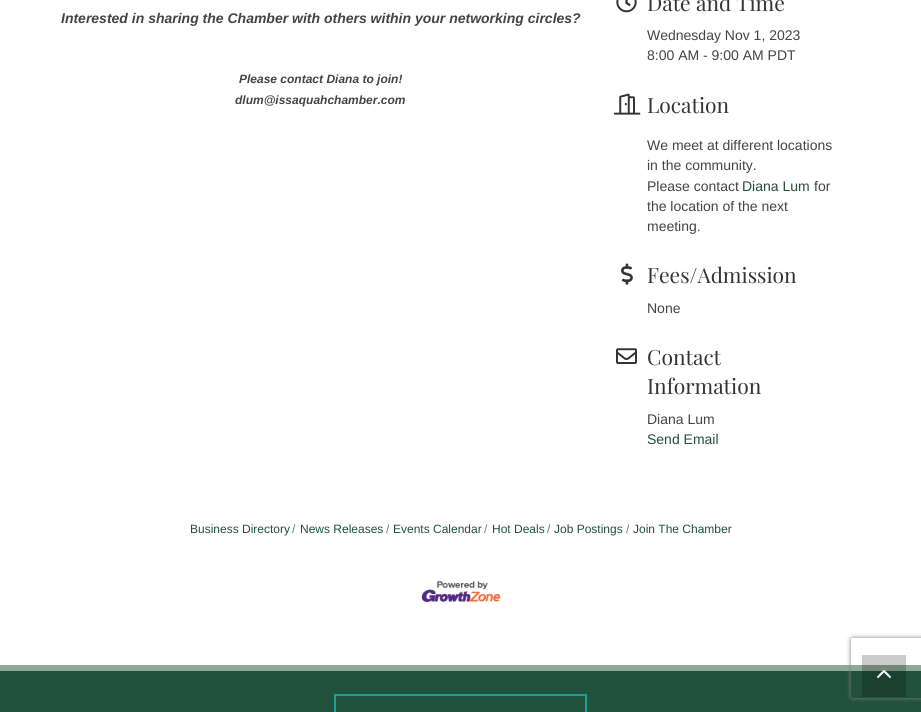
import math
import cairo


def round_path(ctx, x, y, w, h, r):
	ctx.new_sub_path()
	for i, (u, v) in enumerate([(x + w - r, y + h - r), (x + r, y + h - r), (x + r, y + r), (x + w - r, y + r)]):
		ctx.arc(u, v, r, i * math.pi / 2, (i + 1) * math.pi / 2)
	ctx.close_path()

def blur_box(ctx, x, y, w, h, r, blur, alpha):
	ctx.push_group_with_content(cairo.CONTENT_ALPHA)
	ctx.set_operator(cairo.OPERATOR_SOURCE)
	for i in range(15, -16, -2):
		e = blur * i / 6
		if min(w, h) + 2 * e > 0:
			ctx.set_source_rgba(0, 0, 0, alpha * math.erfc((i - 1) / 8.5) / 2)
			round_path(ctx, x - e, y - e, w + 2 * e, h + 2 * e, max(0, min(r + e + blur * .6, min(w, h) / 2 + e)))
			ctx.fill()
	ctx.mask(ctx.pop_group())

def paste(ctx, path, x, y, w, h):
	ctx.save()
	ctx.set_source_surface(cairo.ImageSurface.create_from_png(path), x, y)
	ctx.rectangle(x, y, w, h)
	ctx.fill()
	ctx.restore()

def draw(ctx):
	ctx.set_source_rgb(1, 1, 1)
	ctx.paint()
	ctx.set_source_rgb(0.8, 0.8, 0.8)
	ctx.rectangle(862, 655, 44, 10)
	ctx.fill()
	ctx.select_font_face('Liberation Sans', cairo.FONT_SLANT_ITALIC, cairo.FONT_WEIGHT_BOLD)
	ctx.set_font_size(14)
	ctx.set_source_rgb(0.267, 0.267, 0.267)
	ctx.move_to(61, 23)
	ctx.show_text('Interested in sharing the Chamber with others within your networking circles?')
	ctx.set_font_size(12)
	ctx.move_to(239, 83)
	ctx.show_text('Please contact Diana to join!')
	ctx.move_to(235, 104)
	ctx.show_text('dlum@issaquahchamber.com')
	paste(ctx, 'media/1.png', 616, 0, 21, 13)
	ctx.select_font_face('Playfair Display')
	ctx.set_font_size(21)
	ctx.set_source_rgb(0.2, 0.2, 0.2)
	ctx.move_to(647, 11)
	ctx.show_text('Date and Time')
	ctx.select_font_face('Liberation Sans')
	ctx.set_font_size(14)
	ctx.set_source_rgb(0.267, 0.267, 0.267)
	ctx.move_to(647, 40)
	ctx.show_text('Wednesday Nov 1, 2023')
	ctx.move_to(647, 60)
	ctx.show_text('8:00 AM - 9:00 AM PDT')
	paste(ctx, 'media/2.png', 614, 93, 27, 22)
	ctx.select_font_face('Playfair Display')
	ctx.set_font_size(21)
	ctx.set_source_rgb(0.2, 0.2, 0.2)
	ctx.move_to(647, 113)
	ctx.show_text('Location')
	ctx.select_font_face('Liberation Sans')
	ctx.set_font_size(14)
	ctx.set_source_rgb(0.267, 0.267, 0.267)
	for x, y, s in [
		(647, 150, 'We meet at different locations'),
		(647, 170, 'in the community.'),
		(647, 191, 'Please contact'),
	]:
		ctx.move_to(x, y)
		ctx.show_text(s)
	ctx.set_source_rgb(0.125, 0.318, 0.231)
	ctx.move_to(742, 191)
	ctx.show_text('Diana Lum')
	ctx.set_source_rgb(0.267, 0.267, 0.267)
	for x, y, s in [
		(814, 191, 'for'),
		(647, 211, 'the location of the next'),
		(647, 231, 'meeting.'),
	]:
		ctx.move_to(x, y)
		ctx.show_text(s)
	paste(ctx, 'media/3.png', 621, 263, 12, 22)
	ctx.select_font_face('Playfair Display')
	ctx.set_font_size(21)
	ctx.set_source_rgb(0.2, 0.2, 0.2)
	ctx.move_to(647, 283)
	ctx.show_text('Fees/Admission')
	ctx.select_font_face('Liberation Sans')
	ctx.set_font_size(14)
	ctx.set_source_rgb(0.267, 0.267, 0.267)
	ctx.move_to(647, 313)
	ctx.show_text('None')
	paste(ctx, 'media/4.png', 616, 348, 21, 16)
	ctx.select_font_face('Playfair Display')
	ctx.set_font_size(21)
	ctx.set_source_rgb(0.2, 0.2, 0.2)
	ctx.move_to(647, 365)
	ctx.show_text('Contact')
	ctx.move_to(647, 394)
	ctx.show_text('Information')
	ctx.select_font_face('Liberation Sans')
	ctx.set_font_size(14)
	ctx.set_source_rgb(0.267, 0.267, 0.267)
	ctx.move_to(647, 424)
	ctx.show_text('Diana Lum')
	ctx.set_source_rgb(0.125, 0.318, 0.231)
	ctx.move_to(647, 444)
	ctx.show_text('Send Email')
	ctx.set_font_size(12)
	ctx.move_to(190, 533)
	ctx.show_text('Business Directory')
	ctx.set_source_rgb(0.424, 0.459, 0.49)
	ctx.move_to(292, 533)
	ctx.show_text('/')
	ctx.set_source_rgb(0.125, 0.318, 0.231)
	ctx.move_to(300, 533)
	ctx.show_text('News Releases')
	ctx.set_source_rgb(0.424, 0.459, 0.49)
	ctx.move_to(386, 533)
	ctx.show_text('/')
	ctx.set_source_rgb(0.125, 0.318, 0.231)
	ctx.move_to(393, 533)
	ctx.show_text('Events Calendar')
	ctx.set_source_rgb(0.424, 0.459, 0.49)
	ctx.move_to(484, 533)
	ctx.show_text('/')
	ctx.set_source_rgb(0.125, 0.318, 0.231)
	ctx.move_to(492, 533)
	ctx.show_text('Hot Deals')
	ctx.set_source_rgb(0.424, 0.459, 0.49)
	ctx.move_to(547, 533)
	ctx.show_text('/')
	ctx.set_source_rgb(0.125, 0.318, 0.231)
	ctx.move_to(554, 533)
	ctx.show_text('Job Postings')
	ctx.set_source_rgb(0.424, 0.459, 0.49)
	ctx.move_to(626, 533)
	ctx.show_text('/')
	ctx.set_source_rgb(0.125, 0.318, 0.231)
	ctx.move_to(633, 533)
	ctx.show_text('Join The Chamber')
	paste(ctx, 'media/5.png', 421, 581, 80, 21)
	ctx.set_source_rgb(0.129, 0.314, 0.239)
	ctx.rectangle(0, 671, 921, 41)
	ctx.fill()
	ctx.set_source_rgb(0.102, 0.251, 0.192)
	ctx.rectangle(862, 671, 44, 26)
	ctx.fill()
	ctx.set_source_rgb(0.557, 0.655, 0.608)
	ctx.rectangle(0, 665, 921, 6)
	ctx.fill()
	ctx.set_source_rgb(0.447, 0.525, 0.486)
	ctx.rectangle(862, 665, 44, 6)
	ctx.fill()
	ctx.rectangle(335, 695, 251, 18)
	ctx.set_source_rgb(0.106, 0.627, 0.596)
	ctx.stroke()
	ctx.save()
	ctx.set_fill_rule(cairo.FILL_RULE_EVEN_ODD)
	ctx.new_path()
	ctx.move_to(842, 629)
	ctx.line_to(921, 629)
	ctx.line_to(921, 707)
	ctx.line_to(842, 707)
	ctx.close_path()
	ctx.move_to(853, 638)
	ctx.line_to(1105, 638)
	ctx.curve_to(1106, 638, 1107, 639, 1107, 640)
	ctx.line_to(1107, 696)
	ctx.curve_to(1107, 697, 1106, 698, 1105, 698)
	ctx.line_to(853, 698)
	ctx.curve_to(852, 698, 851, 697, 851, 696)
	ctx.line_to(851, 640)
	ctx.curve_to(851, 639, 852, 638, 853, 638)
	ctx.close_path()
	ctx.clip()
	ctx.set_source_rgb(0.502, 0.502, 0.502)
	blur_box(ctx, 851, 638, 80, 60, 2, 2.5, 1)
	ctx.restore()
	paste(ctx, 'media/6.png', 877, 670, 14, 8)


surface = cairo.ImageSurface(cairo.FORMAT_RGB24, 921, 712)
ctx = cairo.Context(surface)
options = cairo.FontOptions()
options.set_hint_metrics(cairo.HINT_METRICS_OFF)
options.set_hint_style(cairo.HINT_STYLE_NONE)
ctx.set_font_options(options)
ctx.set_miter_limit(4)
draw(ctx)
surface.write_to_png('image.png')
